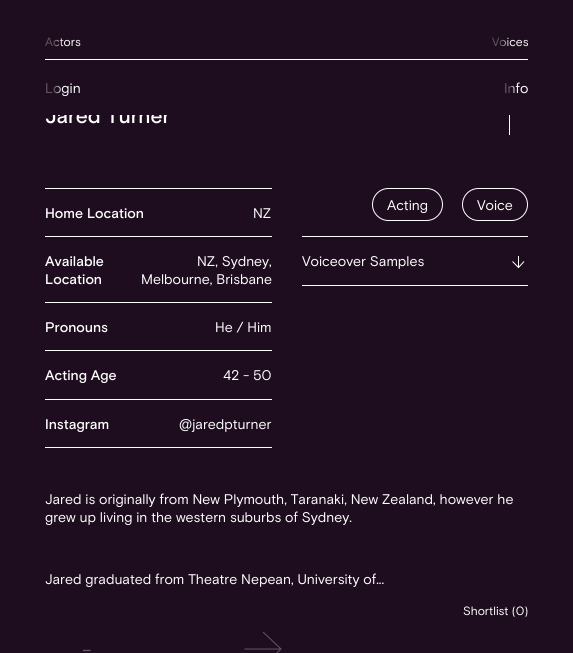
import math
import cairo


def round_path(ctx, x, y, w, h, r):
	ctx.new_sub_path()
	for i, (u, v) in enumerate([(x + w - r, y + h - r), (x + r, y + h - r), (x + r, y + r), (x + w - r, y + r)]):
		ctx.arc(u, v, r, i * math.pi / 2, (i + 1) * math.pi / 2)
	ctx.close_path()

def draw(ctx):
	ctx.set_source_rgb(0.118, 0.051, 0.118)
	ctx.paint()
	ctx.select_font_face('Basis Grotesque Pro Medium')
	ctx.set_font_size(21)
	ctx.set_source_rgb(1, 1, 1)
	ctx.move_to(45, 123)
	ctx.show_text('Jared Turner')
	ctx.set_source_rgb(0.118, 0.051, 0.118)
	ctx.rectangle(52, 108, 118, 7)
	ctx.fill()
	ctx.set_source_rgb(1, 1, 1)
	ctx.rectangle(45, 59, 483, 1)
	ctx.fill()
	ctx.select_font_face('Basis Grotesque Pro')
	ctx.set_font_size(12)
	gradient = cairo.LinearGradient(45, 41, 81, 41)
	gradient.add_color_stop_rgba(0.25, 0.384, 0.337, 0.384, 1)
	gradient.add_color_stop_rgba(0.5, 1, 1, 1, 1)
	gradient.add_color_stop_rgba(0.75, 1, 1, 1, 1)
	ctx.set_source(gradient)
	ctx.move_to(45, 46)
	ctx.show_text('Actors')
	gradient = cairo.LinearGradient(492, 41, 528, 41)
	gradient.add_color_stop_rgba(0.25, 0.384, 0.337, 0.384, 1)
	gradient.add_color_stop_rgba(0.5, 1, 1, 1, 1)
	gradient.add_color_stop_rgba(0.75, 1, 1, 1, 1)
	ctx.set_source(gradient)
	ctx.move_to(492, 46)
	ctx.show_text('Voices')
	ctx.set_font_size(14)
	gradient = cairo.LinearGradient(45, 88, 81, 88)
	gradient.add_color_stop_rgba(0.25, 0.384, 0.337, 0.384, 1)
	gradient.add_color_stop_rgba(0.5, 1, 1, 1, 1)
	gradient.add_color_stop_rgba(0.75, 1, 1, 1, 1)
	ctx.set_source(gradient)
	ctx.move_to(45, 93)
	ctx.show_text('Login')
	gradient = cairo.LinearGradient(504, 88, 528, 88)
	gradient.add_color_stop_rgba(0.25, 0.384, 0.337, 0.384, 1)
	gradient.add_color_stop_rgba(0.5, 1, 1, 1, 1)
	gradient.add_color_stop_rgba(0.75, 1, 1, 1, 1)
	ctx.set_source(gradient)
	ctx.move_to(504, 93)
	ctx.show_text('Info')
	ctx.set_source_rgb(1, 1, 1)
	ctx.rectangle(509, 115, 1, 20)
	ctx.rectangle(45, 188, 227, 1)
	ctx.rectangle(45, 236, 227, 1)
	ctx.fill()
	ctx.select_font_face('Basis Grotesque Pro Medium')
	ctx.move_to(45, 218)
	ctx.show_text('Home Location')
	ctx.select_font_face('Basis Grotesque Pro')
	ctx.move_to(253, 218)
	ctx.show_text('NZ')
	ctx.rectangle(45, 302, 227, 1)
	ctx.fill()
	ctx.select_font_face('Basis Grotesque Pro Medium')
	ctx.move_to(45, 266)
	ctx.show_text('Available')
	ctx.move_to(45, 284)
	ctx.show_text('Location')
	ctx.select_font_face('Basis Grotesque Pro')
	ctx.move_to(197, 266)
	ctx.show_text('NZ, Sydney,')
	ctx.move_to(141, 284)
	ctx.show_text('Melbourne, Brisbane')
	ctx.rectangle(45, 350, 227, 1)
	ctx.fill()
	ctx.select_font_face('Basis Grotesque Pro Medium')
	ctx.move_to(45, 332)
	ctx.show_text('Pronouns')
	ctx.select_font_face('Basis Grotesque Pro')
	ctx.move_to(215, 332)
	ctx.show_text('He / Him')
	ctx.rectangle(45, 399, 227, 1)
	ctx.fill()
	ctx.select_font_face('Basis Grotesque Pro Medium')
	ctx.move_to(45, 380)
	ctx.show_text('Acting Age')
	ctx.select_font_face('Basis Grotesque Pro')
	ctx.move_to(223, 380)
	ctx.show_text('42 - 50')
	ctx.rectangle(45, 447, 227, 1)
	ctx.fill()
	ctx.select_font_face('Basis Grotesque Pro Medium')
	ctx.move_to(45, 429)
	ctx.show_text('Instagram')
	ctx.select_font_face('Basis Grotesque Pro')
	ctx.move_to(179, 429)
	ctx.show_text('@jaredpturner')
	round_path(ctx, 372.5, 188.5, 70, 32, 16)
	ctx.set_line_width(1)
	ctx.stroke()
	ctx.move_to(387, 210)
	ctx.show_text('Acting')
	round_path(ctx, 462.5, 188.5, 65, 32, 16)
	ctx.stroke()
	ctx.move_to(477, 210)
	ctx.show_text('Voice')
	ctx.rectangle(302, 236, 226, 1)
	ctx.fill()
	ctx.rectangle(302, 285, 226, 1)
	ctx.fill()
	ctx.move_to(302, 266)
	ctx.show_text('Voiceover Samples')
	ctx.rectangle(518, 256, 1, 12)
	ctx.fill()
	ctx.new_path()
	ctx.move_to(524, 261.5)
	ctx.line_to(518.5, 267.5)
	ctx.line_to(512.5, 261.5)
	ctx.stroke()
	for x, y, s in [
		(45, 504, 'Jared is originally from New Plymouth, Taranaki, New Zealand, however he'),
		(45, 522, 'grew up living in the western suburbs of Sydney.'),
		(45, 584, 'Jared graduated from Theatre Nepean, University of...'),
	]:
		ctx.move_to(x, y)
		ctx.show_text(s)
	ctx.set_font_size(21)
	ctx.set_source_rgb(0.384, 0.337, 0.384)
	ctx.move_to(82, 657)
	ctx.show_text('-')
	ctx.new_path()
	ctx.move_to(244.5, 649)
	ctx.line_to(280.5, 649)
	ctx.move_to(263, 632)
	ctx.line_to(281, 649)
	ctx.line_to(263, 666)
	ctx.stroke()
	ctx.set_font_size(12)
	ctx.set_source_rgb(1, 1, 1)
	ctx.move_to(463, 615)
	ctx.show_text('Shortlist (0)')


surface = cairo.ImageSurface(cairo.FORMAT_RGB24, 573, 653)
ctx = cairo.Context(surface)
options = cairo.FontOptions()
options.set_hint_metrics(cairo.HINT_METRICS_OFF)
options.set_hint_style(cairo.HINT_STYLE_NONE)
ctx.set_font_options(options)
ctx.set_miter_limit(4)
draw(ctx)
surface.write_to_png('image.png')
